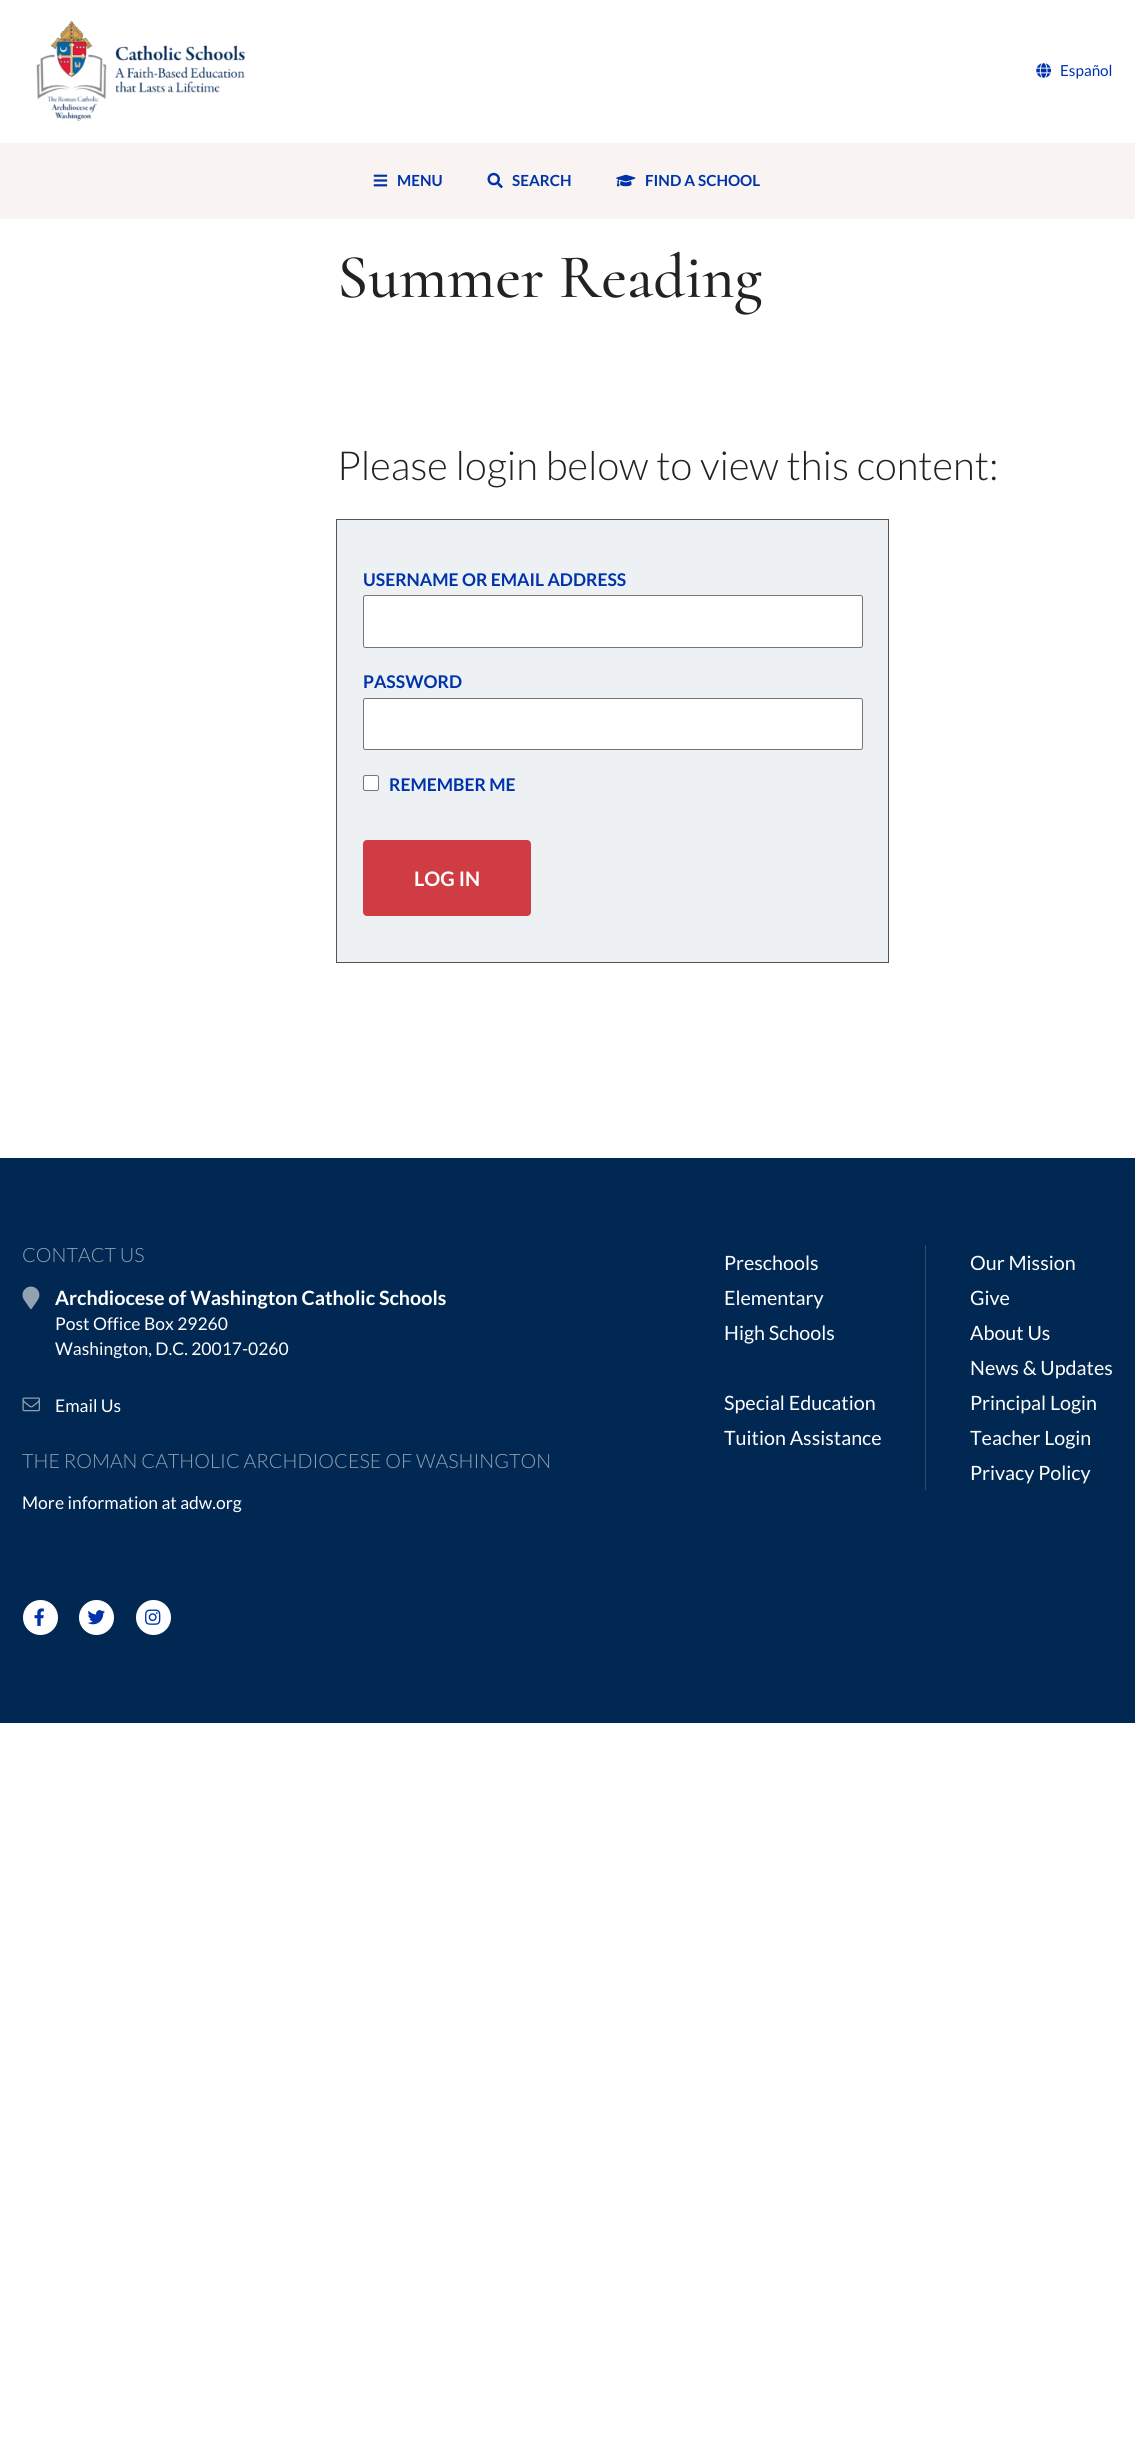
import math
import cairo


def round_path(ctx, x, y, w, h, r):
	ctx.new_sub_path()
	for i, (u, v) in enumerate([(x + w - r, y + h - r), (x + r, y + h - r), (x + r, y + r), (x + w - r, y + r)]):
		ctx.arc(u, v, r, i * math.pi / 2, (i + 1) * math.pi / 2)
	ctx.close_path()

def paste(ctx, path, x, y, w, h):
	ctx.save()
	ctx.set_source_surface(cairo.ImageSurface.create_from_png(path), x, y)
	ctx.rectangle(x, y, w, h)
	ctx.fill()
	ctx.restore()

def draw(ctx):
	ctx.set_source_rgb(1, 1, 1)
	ctx.paint()
	paste(ctx, 'media/1.png', 36, 20, 209, 101)
	paste(ctx, 'media/2.png', 1036, 63, 16, 15)
	ctx.select_font_face('Lato')
	ctx.set_font_size(15.25)
	ctx.set_source_rgb(0, 0.2, 0.671)
	ctx.move_to(1060, 76)
	ctx.show_text('Español')
	ctx.set_source_rgb(0.973, 0.957, 0.945)
	ctx.rectangle(0, 143, 1135, 76)
	ctx.fill()
	paste(ctx, 'media/3.png', 373, 174, 15, 13)
	ctx.select_font_face('Lato', cairo.FONT_SLANT_NORMAL, cairo.FONT_WEIGHT_BOLD)
	ctx.set_source_rgb(0, 0.2, 0.671)
	ctx.move_to(397, 186)
	ctx.show_text('MENU')
	paste(ctx, 'media/4.png', 487, 172, 16, 17)
	ctx.move_to(512, 186)
	ctx.show_text('SEARCH')
	paste(ctx, 'media/5.png', 616, 174, 20, 13)
	ctx.move_to(645, 186)
	ctx.show_text('FIND A SCHOOL')
	ctx.select_font_face('Cormorant Light')
	ctx.set_font_size(62.5)
	ctx.set_source_rgb(0.133, 0.133, 0.133)
	ctx.move_to(337, 297)
	ctx.show_text('Summer Reading')
	ctx.select_font_face('Lato Light')
	ctx.set_font_size(40)
	ctx.move_to(337, 480)
	ctx.show_text('Please login below to view this content:')
	ctx.set_source_rgb(0.929, 0.945, 0.953)
	ctx.rectangle(336.5, 519.5, 552, 443)
	ctx.fill_preserve()
	ctx.set_source_rgb(0.325, 0.325, 0.325)
	ctx.set_line_width(1)
	ctx.stroke()
	ctx.select_font_face('Lato', cairo.FONT_SLANT_NORMAL, cairo.FONT_WEIGHT_BOLD)
	ctx.set_font_size(17.5)
	ctx.set_source_rgb(0, 0.2, 0.671)
	ctx.move_to(363, 586)
	ctx.show_text('USERNAME OR EMAIL ADDRESS')
	ctx.set_source_rgb(1, 1, 1)
	round_path(ctx, 363.5, 595.5, 499, 52, 2)
	ctx.fill_preserve()
	ctx.set_source_rgb(0.463, 0.463, 0.463)
	ctx.stroke()
	ctx.set_source_rgb(0, 0.2, 0.671)
	ctx.move_to(363, 688)
	ctx.show_text('PASSWORD')
	ctx.set_source_rgb(1, 1, 1)
	round_path(ctx, 363.5, 698.5, 499, 51, 2)
	ctx.fill_preserve()
	ctx.set_source_rgb(0.463, 0.463, 0.463)
	ctx.stroke()
	ctx.set_source_rgb(1, 1, 1)
	round_path(ctx, 363.5, 775.5, 15, 15, 2)
	ctx.fill_preserve()
	ctx.set_source_rgb(0.463, 0.463, 0.463)
	ctx.stroke()
	ctx.set_source_rgb(0, 0.2, 0.671)
	ctx.move_to(389, 791)
	ctx.show_text('REMEMBER ME')
	ctx.set_source_rgb(0.816, 0.235, 0.267)
	round_path(ctx, 363.5, 840.5, 167, 75, 3.5)
	ctx.fill_preserve()
	ctx.stroke()
	ctx.set_font_size(20)
	ctx.set_source_rgb(1, 1, 1)
	ctx.move_to(414, 886)
	ctx.show_text('LOG IN')
	ctx.set_source_rgb(0, 0.157, 0.322)
	ctx.rectangle(0, 1158, 1135, 565)
	ctx.fill()
	ctx.select_font_face('Lato Light')
	ctx.set_font_size(19.7)
	ctx.set_source_rgb(0.576, 0.635, 0.698)
	ctx.move_to(22, 1262)
	ctx.show_text('CONTACT US')
	paste(ctx, 'media/6.png', 22, 1286, 18, 23)
	ctx.select_font_face('Lato', cairo.FONT_SLANT_NORMAL, cairo.FONT_WEIGHT_BOLD)
	ctx.set_source_rgb(1, 1, 1)
	ctx.move_to(55, 1305)
	ctx.show_text('Archdiocese of Washington Catholic Schools')
	ctx.select_font_face('Lato')
	ctx.set_font_size(17.5)
	ctx.move_to(55, 1330)
	ctx.show_text('Post Office Box 29260')
	ctx.move_to(55, 1355)
	ctx.show_text('Washington, D.C. 20017-0260')
	paste(ctx, 'media/7.png', 22, 1397, 18, 15)
	ctx.move_to(55, 1412)
	ctx.show_text('Email Us')
	ctx.select_font_face('Lato Light')
	ctx.set_font_size(19.7)
	ctx.set_source_rgb(0.576, 0.635, 0.698)
	ctx.move_to(22, 1468)
	ctx.show_text('THE ROMAN CATHOLIC ARCHDIOCESE OF WASHINGTON')
	ctx.select_font_face('Lato')
	ctx.set_font_size(17.5)
	ctx.set_source_rgb(1, 1, 1)
	ctx.move_to(22, 1509)
	ctx.show_text('More information at adw.org')
	ctx.new_path()
	ctx.arc(40.5, 1617.5, 17.5, 0, 2 * math.pi)
	ctx.fill()
	paste(ctx, 'media/8.png', 34, 1608, 10, 18)
	ctx.arc(96.5, 1617.5, 17.5, 0, 2 * math.pi)
	ctx.fill()
	paste(ctx, 'media/9.png', 87, 1610, 18, 15)
	ctx.arc(153.5, 1617.5, 17.5, 0, 2 * math.pi)
	ctx.fill()
	paste(ctx, 'media/10.png', 145, 1609, 16, 16)
	ctx.set_font_size(19.7)
	for x, y, s in [
		(724, 1270, 'Preschools'),
		(724, 1305, 'Elementary'),
		(724, 1340, 'High Schools'),
		(724, 1410, 'Special Education'),
		(724, 1445, 'Tuition Assistance'),
	]:
		ctx.move_to(x, y)
		ctx.show_text(s)
	ctx.set_source_rgb(0.173, 0.302, 0.435)
	ctx.rectangle(925, 1245, 1, 245)
	ctx.fill()
	ctx.set_source_rgb(1, 1, 1)
	for x, y, s in [
		(970, 1270, 'Our Mission'),
		(970, 1305, 'Give'),
		(970, 1340, 'About Us'),
		(970, 1375, 'News & Updates'),
		(970, 1410, 'Principal Login'),
		(970, 1445, 'Teacher Login'),
		(970, 1480, 'Privacy Policy'),
	]:
		ctx.move_to(x, y)
		ctx.show_text(s)


surface = cairo.ImageSurface(cairo.FORMAT_RGB24, 1135, 2447)
ctx = cairo.Context(surface)
options = cairo.FontOptions()
options.set_hint_metrics(cairo.HINT_METRICS_OFF)
options.set_hint_style(cairo.HINT_STYLE_NONE)
ctx.set_font_options(options)
ctx.set_miter_limit(4)
draw(ctx)
surface.write_to_png('image.png')
